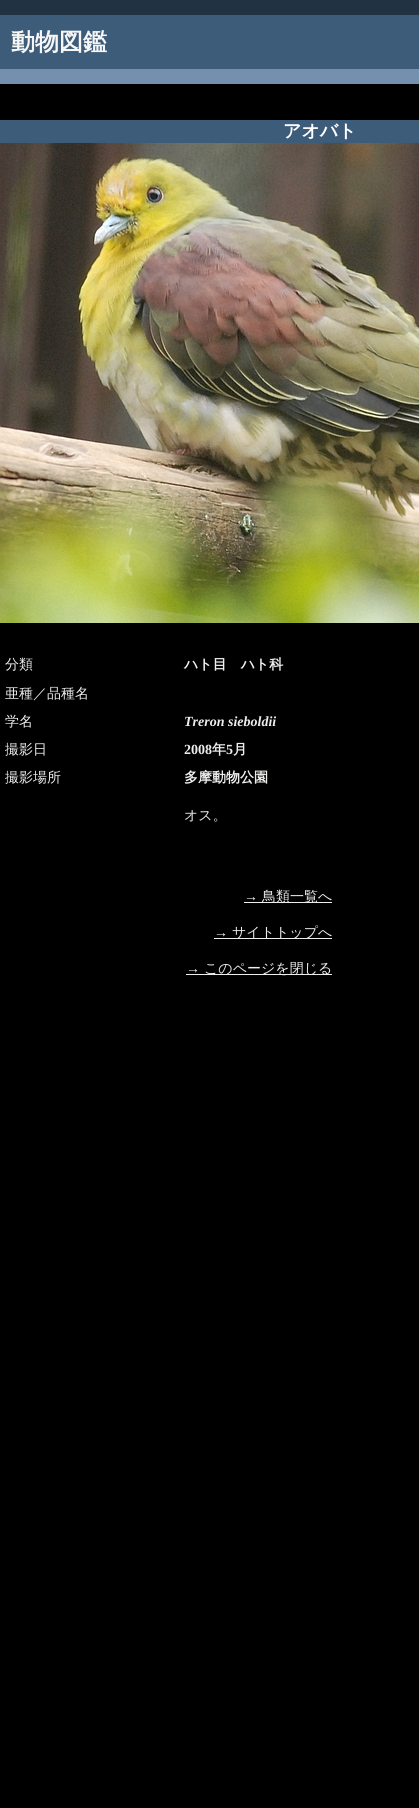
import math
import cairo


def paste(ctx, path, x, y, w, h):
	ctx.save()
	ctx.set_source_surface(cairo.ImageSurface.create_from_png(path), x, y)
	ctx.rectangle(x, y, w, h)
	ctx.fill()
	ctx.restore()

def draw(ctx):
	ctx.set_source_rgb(0, 0, 0.004)
	ctx.paint()
	ctx.set_source_rgb(0.129, 0.196, 0.259)
	ctx.rectangle(0, 0, 419, 15)
	ctx.fill()
	ctx.set_source_rgb(0.239, 0.361, 0.478)
	ctx.rectangle(0, 15, 419, 54)
	ctx.fill()
	ctx.select_font_face('WenQuanYi Zen Hei', cairo.FONT_SLANT_NORMAL, cairo.FONT_WEIGHT_BOLD)
	ctx.set_font_size(24)
	ctx.set_source_rgb(0.961, 0.961, 0.965)
	ctx.move_to(11, 50)
	ctx.show_text('動物図鑑')
	ctx.set_source_rgb(0.459, 0.565, 0.682)
	ctx.rectangle(0, 69, 419, 15)
	ctx.fill()
	ctx.set_source_rgb(0.239, 0.361, 0.478)
	ctx.rectangle(0, 120, 419, 23)
	ctx.fill()
	ctx.set_font_size(18)
	ctx.set_source_rgb(1, 1, 1)
	ctx.move_to(283, 137)
	ctx.show_text('アオバト')
	paste(ctx, 'media/1.png', 0, 143, 419, 480)
	ctx.select_font_face('WenQuanYi Zen Hei Medium')
	ctx.set_font_size(14)
	ctx.set_source_rgb(0.933, 0.933, 0.929)
	ctx.move_to(5, 669)
	ctx.show_text('分類')
	ctx.select_font_face('WenQuanYi Zen Hei', cairo.FONT_SLANT_NORMAL, cairo.FONT_WEIGHT_BOLD)
	ctx.move_to(184, 669)
	ctx.show_text('ハト目　ハト科')
	ctx.select_font_face('WenQuanYi Zen Hei Medium')
	ctx.move_to(5, 698)
	ctx.show_text('亜種／品種名')
	ctx.move_to(5, 726)
	ctx.show_text('学名')
	ctx.select_font_face('Liberation Serif', cairo.FONT_SLANT_ITALIC, cairo.FONT_WEIGHT_BOLD)
	ctx.move_to(184, 726)
	ctx.show_text('Treron sieboldii')
	ctx.select_font_face('WenQuanYi Zen Hei Medium')
	ctx.move_to(5, 754)
	ctx.show_text('撮影日')
	ctx.select_font_face('Liberation Serif', cairo.FONT_SLANT_NORMAL, cairo.FONT_WEIGHT_BOLD)
	ctx.move_to(184, 754)
	ctx.show_text('2008')
	ctx.select_font_face('WenQuanYi Zen Hei', cairo.FONT_SLANT_NORMAL, cairo.FONT_WEIGHT_BOLD)
	ctx.move_to(212, 754)
	ctx.show_text('年')
	ctx.select_font_face('Liberation Serif', cairo.FONT_SLANT_NORMAL, cairo.FONT_WEIGHT_BOLD)
	ctx.move_to(226, 754)
	ctx.show_text('5')
	ctx.select_font_face('WenQuanYi Zen Hei', cairo.FONT_SLANT_NORMAL, cairo.FONT_WEIGHT_BOLD)
	ctx.move_to(233, 754)
	ctx.show_text('月')
	ctx.select_font_face('WenQuanYi Zen Hei Medium')
	ctx.move_to(5, 782)
	ctx.show_text('撮影場所')
	ctx.select_font_face('WenQuanYi Zen Hei', cairo.FONT_SLANT_NORMAL, cairo.FONT_WEIGHT_BOLD)
	ctx.move_to(184, 782)
	ctx.show_text('多摩動物公園')
	ctx.select_font_face('WenQuanYi Zen Hei Medium')
	ctx.move_to(184, 820)
	ctx.show_text('オス。')
	ctx.select_font_face('Liberation Serif')
	ctx.move_to(244, 901)
	ctx.show_text('→')
	ctx.rectangle(244, 902, 88, 1)
	ctx.fill()
	ctx.select_font_face('WenQuanYi Zen Hei Medium')
	ctx.move_to(262, 901)
	ctx.show_text('鳥類一覧へ')
	ctx.select_font_face('Liberation Serif')
	ctx.move_to(214, 937)
	ctx.show_text('→')
	ctx.rectangle(214, 938, 118, 1)
	ctx.fill()
	ctx.select_font_face('WenQuanYi Zen Hei Medium')
	ctx.move_to(232, 937)
	ctx.show_text('サイトトップへ')
	ctx.select_font_face('Liberation Serif')
	ctx.move_to(186, 973)
	ctx.show_text('→')
	ctx.rectangle(186, 974, 146, 1)
	ctx.fill()
	ctx.select_font_face('WenQuanYi Zen Hei Medium')
	ctx.move_to(204, 973)
	ctx.show_text('このページを閉じる')


surface = cairo.ImageSurface(cairo.FORMAT_RGB24, 419, 1808)
ctx = cairo.Context(surface)
options = cairo.FontOptions()
options.set_hint_metrics(cairo.HINT_METRICS_OFF)
options.set_hint_style(cairo.HINT_STYLE_NONE)
ctx.set_font_options(options)
ctx.set_miter_limit(4)
draw(ctx)
surface.write_to_png('image.png')
